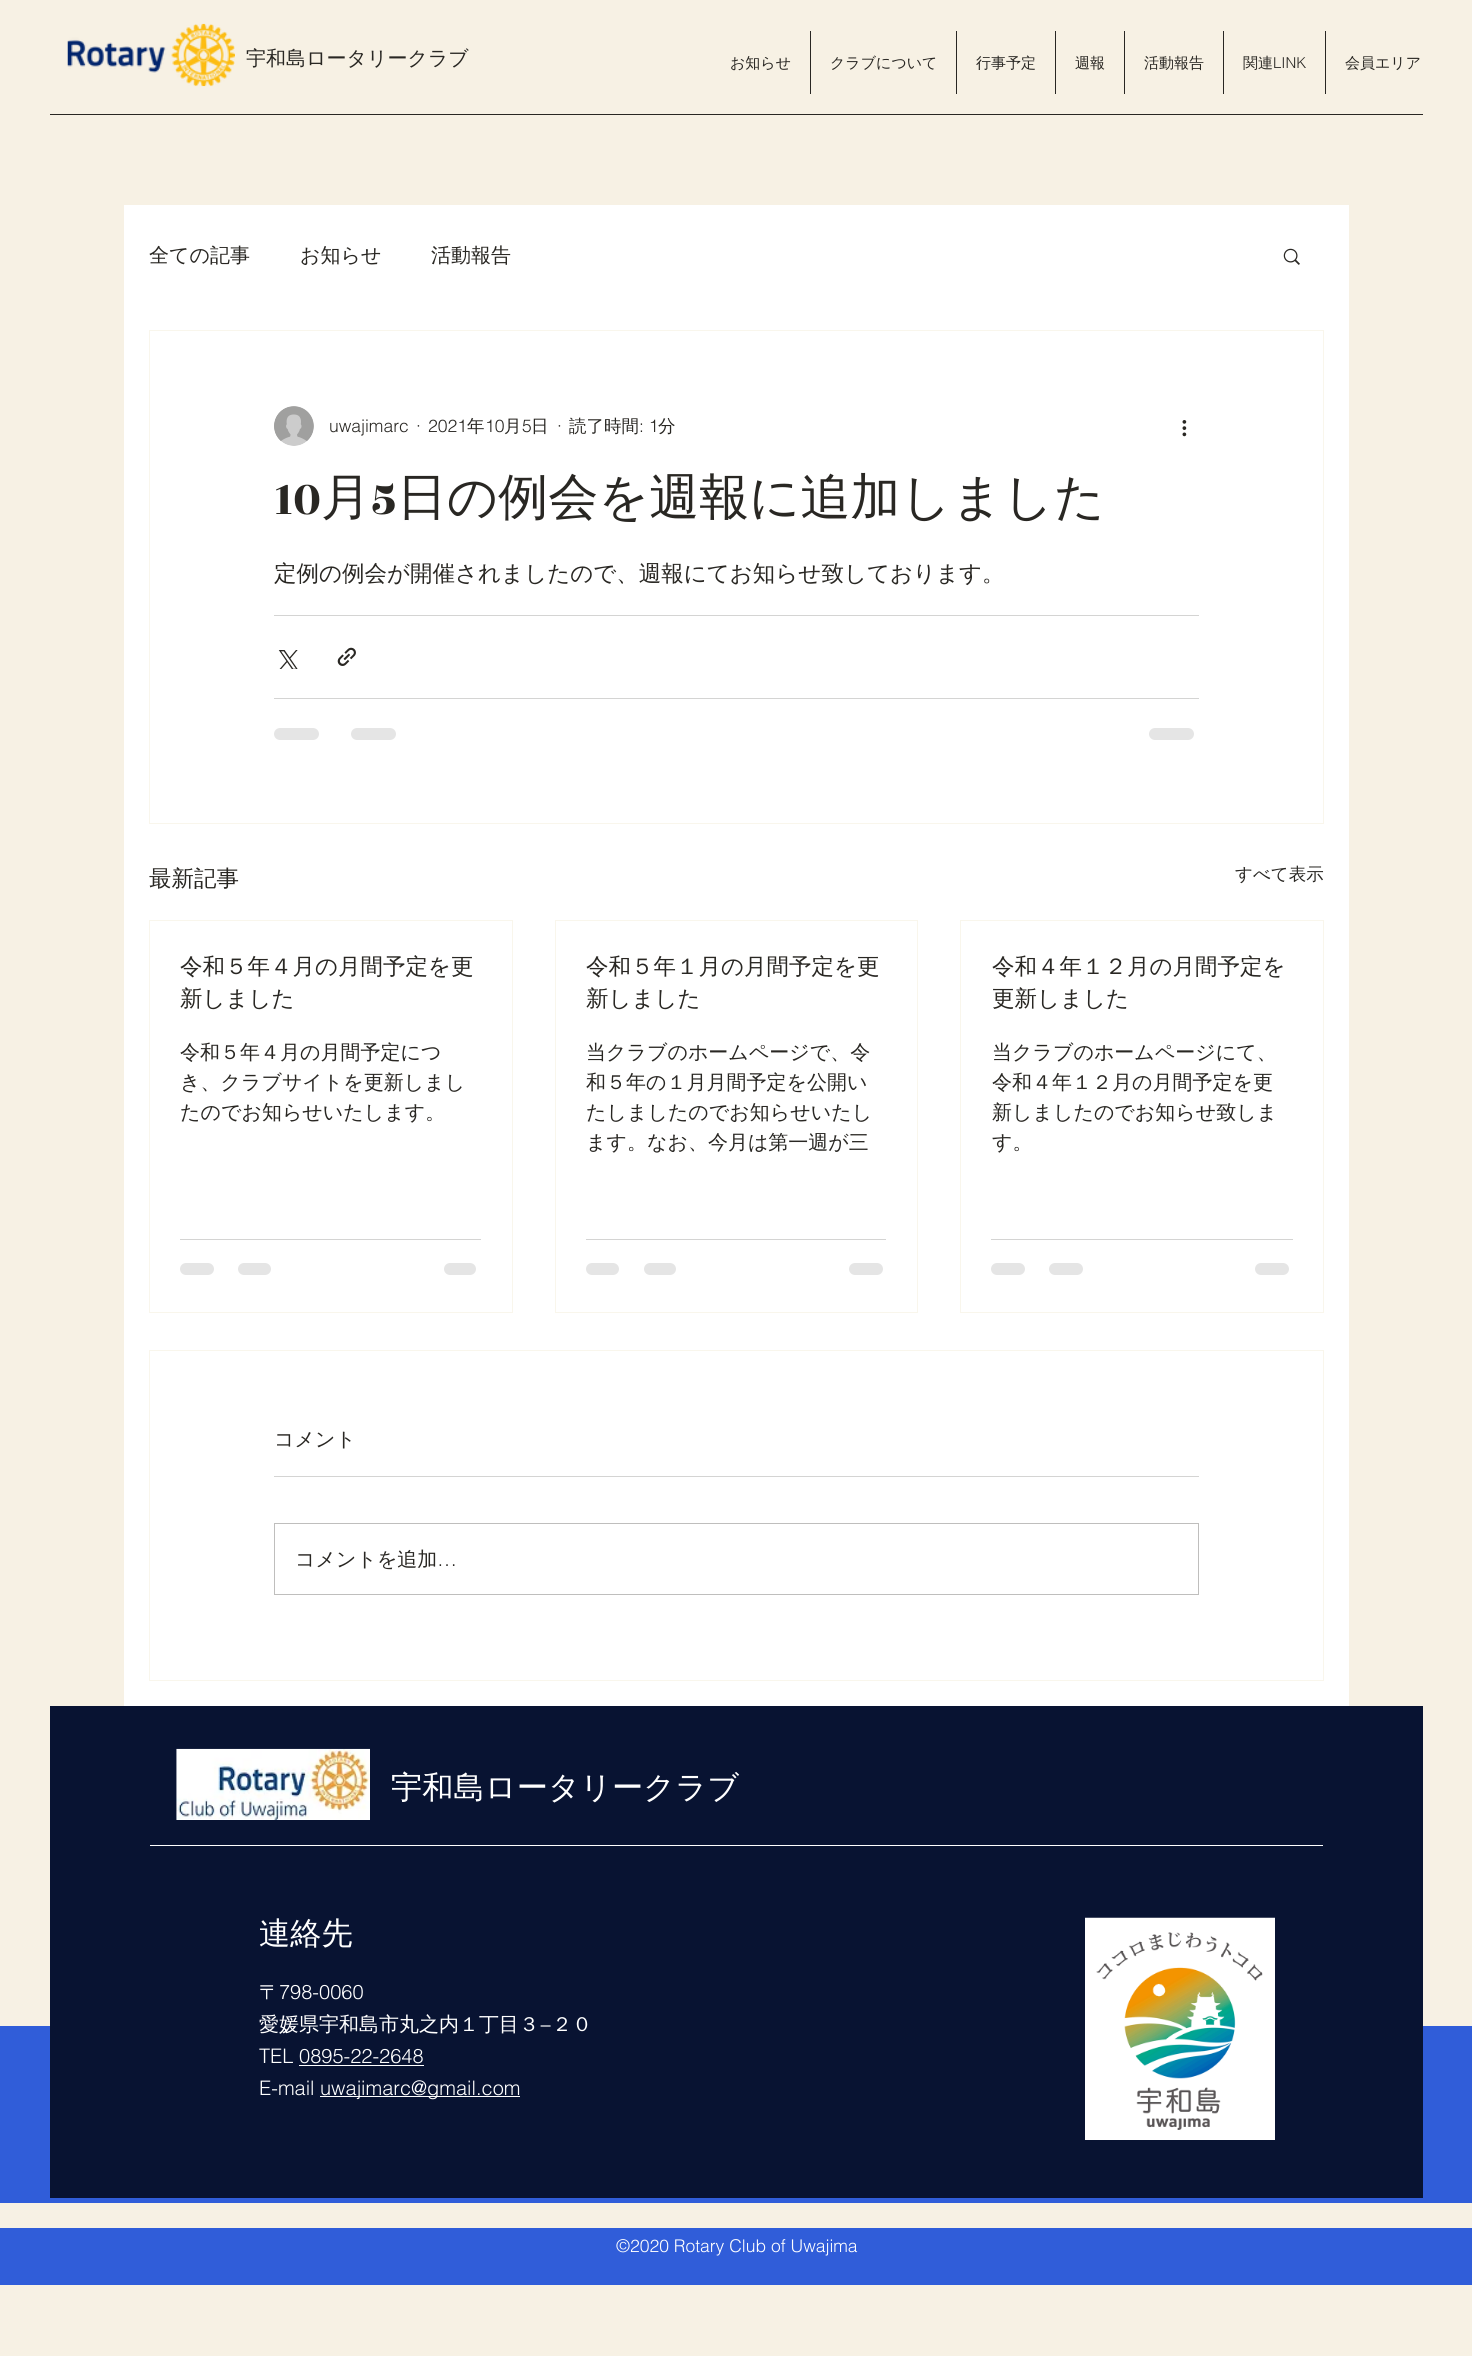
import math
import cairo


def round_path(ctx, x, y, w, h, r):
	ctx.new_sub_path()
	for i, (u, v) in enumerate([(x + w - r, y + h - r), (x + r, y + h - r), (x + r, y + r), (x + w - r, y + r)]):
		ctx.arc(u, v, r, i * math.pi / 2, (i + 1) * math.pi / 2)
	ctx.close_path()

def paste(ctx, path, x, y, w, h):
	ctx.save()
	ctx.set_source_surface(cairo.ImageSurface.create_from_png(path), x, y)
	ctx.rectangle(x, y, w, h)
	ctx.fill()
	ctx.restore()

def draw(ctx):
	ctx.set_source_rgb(0.965, 0.945, 0.894)
	ctx.paint()
	paste(ctx, 'media/1.png', 67, 23, 168, 64)
	ctx.select_font_face('WenQuanYi Zen Hei Medium')
	ctx.set_font_size(20)
	ctx.set_source_rgb(0.161, 0.153, 0.137)
	ctx.move_to(246, 65)
	ctx.show_text('宇和島ロータリークラブ')
	ctx.set_font_size(15)
	ctx.move_to(730, 68)
	ctx.show_text('お知らせ')
	ctx.rectangle(810, 31, 1, 63)
	ctx.fill()
	ctx.move_to(830, 68)
	ctx.show_text('クラブについて')
	ctx.rectangle(956, 31, 1, 63)
	ctx.fill()
	ctx.move_to(976, 68)
	ctx.show_text('行事予定')
	ctx.rectangle(1055, 31, 1, 63)
	ctx.fill()
	ctx.move_to(1075, 68)
	ctx.show_text('週報')
	ctx.rectangle(1124, 31, 1, 63)
	ctx.fill()
	ctx.move_to(1144, 68)
	ctx.show_text('活動報告')
	ctx.rectangle(1223, 31, 1, 63)
	ctx.fill()
	ctx.move_to(1243, 68)
	ctx.show_text('関連')
	ctx.select_font_face('helvetica Light')
	ctx.move_to(1273, 68)
	ctx.show_text('LINK')
	ctx.rectangle(1325, 31, 1, 63)
	ctx.fill()
	ctx.select_font_face('WenQuanYi Zen Hei Medium')
	ctx.move_to(1345, 68)
	ctx.show_text('会員エリア')
	ctx.rectangle(50, 114, 1373, 1)
	ctx.fill()
	ctx.set_source_rgb(1, 1, 1)
	ctx.rectangle(124, 205, 1225, 1501)
	ctx.fill()
	ctx.set_font_size(20)
	ctx.set_source_rgb(0.161, 0.153, 0.137)
	for x, y, s in [
		(149, 262, '全ての記事'),
		(300, 262, 'お知らせ'),
		(431, 262, '活動報告'),
	]:
		ctx.move_to(x, y)
		ctx.show_text(s)
	paste(ctx, 'media/2.png', 1283, 248, 17, 17)
	ctx.rectangle(149.5, 330.5, 1174, 493)
	ctx.set_source_rgb(0.973, 0.961, 0.922)
	ctx.set_line_width(1)
	ctx.stroke()
	paste(ctx, 'media/3.png', 274, 406, 40, 40)
	ctx.select_font_face('helvetica Light')
	ctx.set_font_size(17.5)
	ctx.set_source_rgb(0.161, 0.153, 0.137)
	for x, y, s in [
		(329, 432, 'uwajimarc'),
		(416, 432, '·'),
		(428, 432, '2021'),
	]:
		ctx.move_to(x, y)
		ctx.show_text(s)
	ctx.select_font_face('WenQuanYi Zen Hei Medium')
	ctx.move_to(467, 432)
	ctx.show_text('年')
	ctx.select_font_face('helvetica Light')
	ctx.move_to(485, 432)
	ctx.show_text('10')
	ctx.select_font_face('WenQuanYi Zen Hei Medium')
	ctx.move_to(504, 432)
	ctx.show_text('月')
	ctx.select_font_face('helvetica Light')
	ctx.move_to(522, 432)
	ctx.show_text('5')
	ctx.select_font_face('WenQuanYi Zen Hei Medium')
	ctx.move_to(531, 432)
	ctx.show_text('日')
	ctx.select_font_face('helvetica Light')
	ctx.move_to(557, 432)
	ctx.show_text('·')
	ctx.select_font_face('WenQuanYi Zen Hei Medium')
	ctx.move_to(569, 432)
	ctx.show_text('読了時間')
	ctx.select_font_face('helvetica Light')
	ctx.move_to(639, 432)
	ctx.show_text(': 1')
	ctx.select_font_face('WenQuanYi Zen Hei Medium')
	ctx.move_to(658, 432)
	ctx.show_text('分')
	paste(ctx, 'media/4.png', 1182, 420, 5, 17)
	ctx.select_font_face('Rozha One')
	ctx.set_font_size(50)
	ctx.move_to(274, 514)
	ctx.show_text('10')
	ctx.select_font_face('WenQuanYi Zen Hei Medium')
	ctx.move_to(321, 514)
	ctx.show_text('月')
	ctx.select_font_face('Rozha One')
	ctx.move_to(371, 514)
	ctx.show_text('5')
	ctx.select_font_face('WenQuanYi Zen Hei Medium')
	ctx.move_to(397, 514)
	ctx.show_text('日の例会を週報に追加しました')
	ctx.set_font_size(22.5)
	ctx.move_to(274, 581)
	ctx.show_text('定例の例会が開催されましたので、週報にてお知らせ致しております。')
	ctx.set_source_rgb(0.831, 0.831, 0.827)
	ctx.rectangle(274, 615, 925, 1)
	ctx.fill()
	paste(ctx, 'media/5.png', 278, 650, 20, 19)
	paste(ctx, 'media/6.png', 337, 647, 19, 19)
	ctx.rectangle(274, 698, 925, 1)
	ctx.fill()
	ctx.set_source_rgb(0.898, 0.898, 0.898)
	round_path(ctx, 274, 728, 45, 12, 6)
	ctx.fill()
	round_path(ctx, 351, 728, 45, 12, 6)
	ctx.fill()
	round_path(ctx, 1149, 728, 45, 12, 6)
	ctx.fill()
	ctx.set_source_rgb(0.161, 0.153, 0.137)
	ctx.move_to(149, 886)
	ctx.show_text('最新記事')
	ctx.set_font_size(17.5)
	ctx.move_to(1235, 880)
	ctx.show_text('すべて表示')
	ctx.rectangle(149.5, 920.5, 363, 392)
	ctx.set_source_rgb(0.973, 0.961, 0.922)
	ctx.stroke()
	ctx.set_font_size(22.5)
	ctx.set_source_rgb(0.161, 0.153, 0.137)
	ctx.move_to(180, 974)
	ctx.show_text('令和５年４月の月間予定を更')
	ctx.move_to(180, 1006)
	ctx.show_text('新しました')
	ctx.set_font_size(20)
	for x, y, s in [
		(180, 1059, '令和５年４月の月間予定につ'),
		(180, 1089, 'き、クラブサイトを更新しまし'),
		(180, 1119, 'たのでお知らせいたします。'),
	]:
		ctx.move_to(x, y)
		ctx.show_text(s)
	ctx.set_source_rgb(0.831, 0.831, 0.827)
	ctx.rectangle(180, 1239, 301, 1)
	ctx.fill()
	ctx.set_source_rgb(0.898, 0.898, 0.898)
	round_path(ctx, 180, 1263, 34, 12, 6)
	ctx.fill()
	round_path(ctx, 238, 1263, 33, 12, 6)
	ctx.fill()
	round_path(ctx, 444, 1263, 32, 12, 6)
	ctx.fill()
	ctx.rectangle(555.5, 920.5, 362, 392)
	ctx.set_source_rgb(0.973, 0.961, 0.922)
	ctx.stroke()
	ctx.set_font_size(22.5)
	ctx.set_source_rgb(0.161, 0.153, 0.137)
	ctx.move_to(586, 974)
	ctx.show_text('令和５年１月の月間予定を更')
	ctx.move_to(586, 1006)
	ctx.show_text('新しました')
	ctx.set_font_size(20)
	for x, y, s in [
		(586, 1059, '当クラブのホームページで、令'),
		(586, 1089, '和５年の１月月間予定を公開い'),
		(586, 1119, 'たしましたのでお知らせいたし'),
		(586, 1149, 'ます。なお、今月は第一週が三'),
	]:
		ctx.move_to(x, y)
		ctx.show_text(s)
	ctx.set_source_rgb(0.831, 0.831, 0.827)
	ctx.rectangle(586, 1239, 300, 1)
	ctx.fill()
	ctx.set_source_rgb(0.898, 0.898, 0.898)
	round_path(ctx, 586, 1263, 33, 12, 6)
	ctx.fill()
	round_path(ctx, 644, 1263, 32, 12, 6)
	ctx.fill()
	round_path(ctx, 849, 1263, 34, 12, 6)
	ctx.fill()
	ctx.rectangle(960.5, 920.5, 363, 392)
	ctx.set_source_rgb(0.973, 0.961, 0.922)
	ctx.stroke()
	ctx.set_font_size(22.5)
	ctx.set_source_rgb(0.161, 0.153, 0.137)
	ctx.move_to(992, 974)
	ctx.show_text('令和４年１２月の月間予定を')
	ctx.move_to(992, 1006)
	ctx.show_text('更新しました')
	ctx.set_font_size(20)
	for x, y, s in [
		(992, 1059, '当クラブのホームページにて、'),
		(992, 1089, '令和４年１２月の月間予定を更'),
		(992, 1119, '新しましたのでお知らせ致しま'),
		(992, 1149, 'す。'),
	]:
		ctx.move_to(x, y)
		ctx.show_text(s)
	ctx.set_source_rgb(0.831, 0.831, 0.827)
	ctx.rectangle(991, 1239, 302, 1)
	ctx.fill()
	ctx.set_source_rgb(0.898, 0.898, 0.898)
	round_path(ctx, 991, 1263, 34, 12, 6)
	ctx.fill()
	round_path(ctx, 1049, 1263, 34, 12, 6)
	ctx.fill()
	round_path(ctx, 1255, 1263, 34, 12, 6)
	ctx.fill()
	ctx.rectangle(149.5, 1350.5, 1174, 330)
	ctx.set_source_rgb(0.973, 0.961, 0.922)
	ctx.stroke()
	ctx.set_source_rgb(0.161, 0.153, 0.137)
	ctx.move_to(274, 1446)
	ctx.show_text('コメント')
	ctx.set_source_rgb(0.831, 0.831, 0.827)
	ctx.rectangle(274, 1476, 925, 1)
	ctx.fill()
	ctx.rectangle(274.5, 1523.5, 924, 71)
	ctx.set_source_rgb(0.749, 0.745, 0.741)
	ctx.stroke()
	ctx.set_source_rgb(0.161, 0.153, 0.137)
	ctx.move_to(295, 1566)
	ctx.show_text('コメントを追加')
	ctx.select_font_face('helvetica Light')
	ctx.move_to(437, 1566)
	ctx.show_text('…')
	ctx.set_source_rgb(0.035, 0.078, 0.196)
	ctx.rectangle(50, 1706, 1373, 179)
	ctx.fill()
	paste(ctx, 'media/7.png', 176, 1748, 194, 72)
	ctx.select_font_face('WenQuanYi Zen Hei Medium')
	ctx.set_font_size(31.25)
	ctx.set_source_rgb(1, 1, 1)
	ctx.move_to(391, 1798)
	ctx.show_text('宇和島ロータリークラブ')
	ctx.rectangle(150, 1845, 1173, 1)
	ctx.fill()
	ctx.set_source_rgb(0.188, 0.365, 0.851)
	ctx.rectangle(0, 2026, 1472, 177)
	ctx.fill()
	ctx.set_source_rgb(0.035, 0.078, 0.196)
	ctx.rectangle(50, 1885, 1373, 313)
	ctx.fill()
	ctx.set_source_rgb(1, 1, 1)
	ctx.move_to(259, 1944)
	ctx.show_text('連絡先')
	ctx.set_font_size(20)
	ctx.move_to(259, 1999)
	ctx.show_text('〒')
	ctx.select_font_face('helvetica Light')
	ctx.move_to(279, 1999)
	ctx.show_text('798-0060')
	ctx.select_font_face('WenQuanYi Zen Hei Medium')
	ctx.move_to(259, 2031)
	ctx.show_text('愛媛県宇和島市丸之内１丁目３')
	ctx.select_font_face('helvetica Light')
	ctx.move_to(539, 2031)
	ctx.show_text('−')
	ctx.select_font_face('WenQuanYi Zen Hei Medium')
	ctx.move_to(552, 2031)
	ctx.show_text('２０')
	ctx.select_font_face('helvetica Light')
	ctx.move_to(259, 2063)
	ctx.show_text('TEL 0895-22-2648')
	ctx.rectangle(299, 2065, 125, 1)
	ctx.fill()
	ctx.move_to(259, 2095)
	ctx.show_text('E-mail')
	ctx.rectangle(320, 2096, 200, 1)
	ctx.fill()
	ctx.move_to(320, 2095)
	ctx.show_text('uwajimarc@gmail.com')
	paste(ctx, 'media/8.png', 1085, 1917, 190, 223)
	ctx.set_source_rgb(0.188, 0.365, 0.851)
	ctx.rectangle(0, 2228, 1472, 57)
	ctx.fill()
	ctx.set_font_size(17.5)
	ctx.set_source_rgb(1, 1, 1)
	ctx.move_to(616, 2252)
	ctx.show_text('©2020 Rotary Club of Uwajima')


surface = cairo.ImageSurface(cairo.FORMAT_RGB24, 1472, 2356)
ctx = cairo.Context(surface)
options = cairo.FontOptions()
options.set_hint_metrics(cairo.HINT_METRICS_OFF)
options.set_hint_style(cairo.HINT_STYLE_NONE)
ctx.set_font_options(options)
ctx.set_miter_limit(4)
draw(ctx)
surface.write_to_png('image.png')
